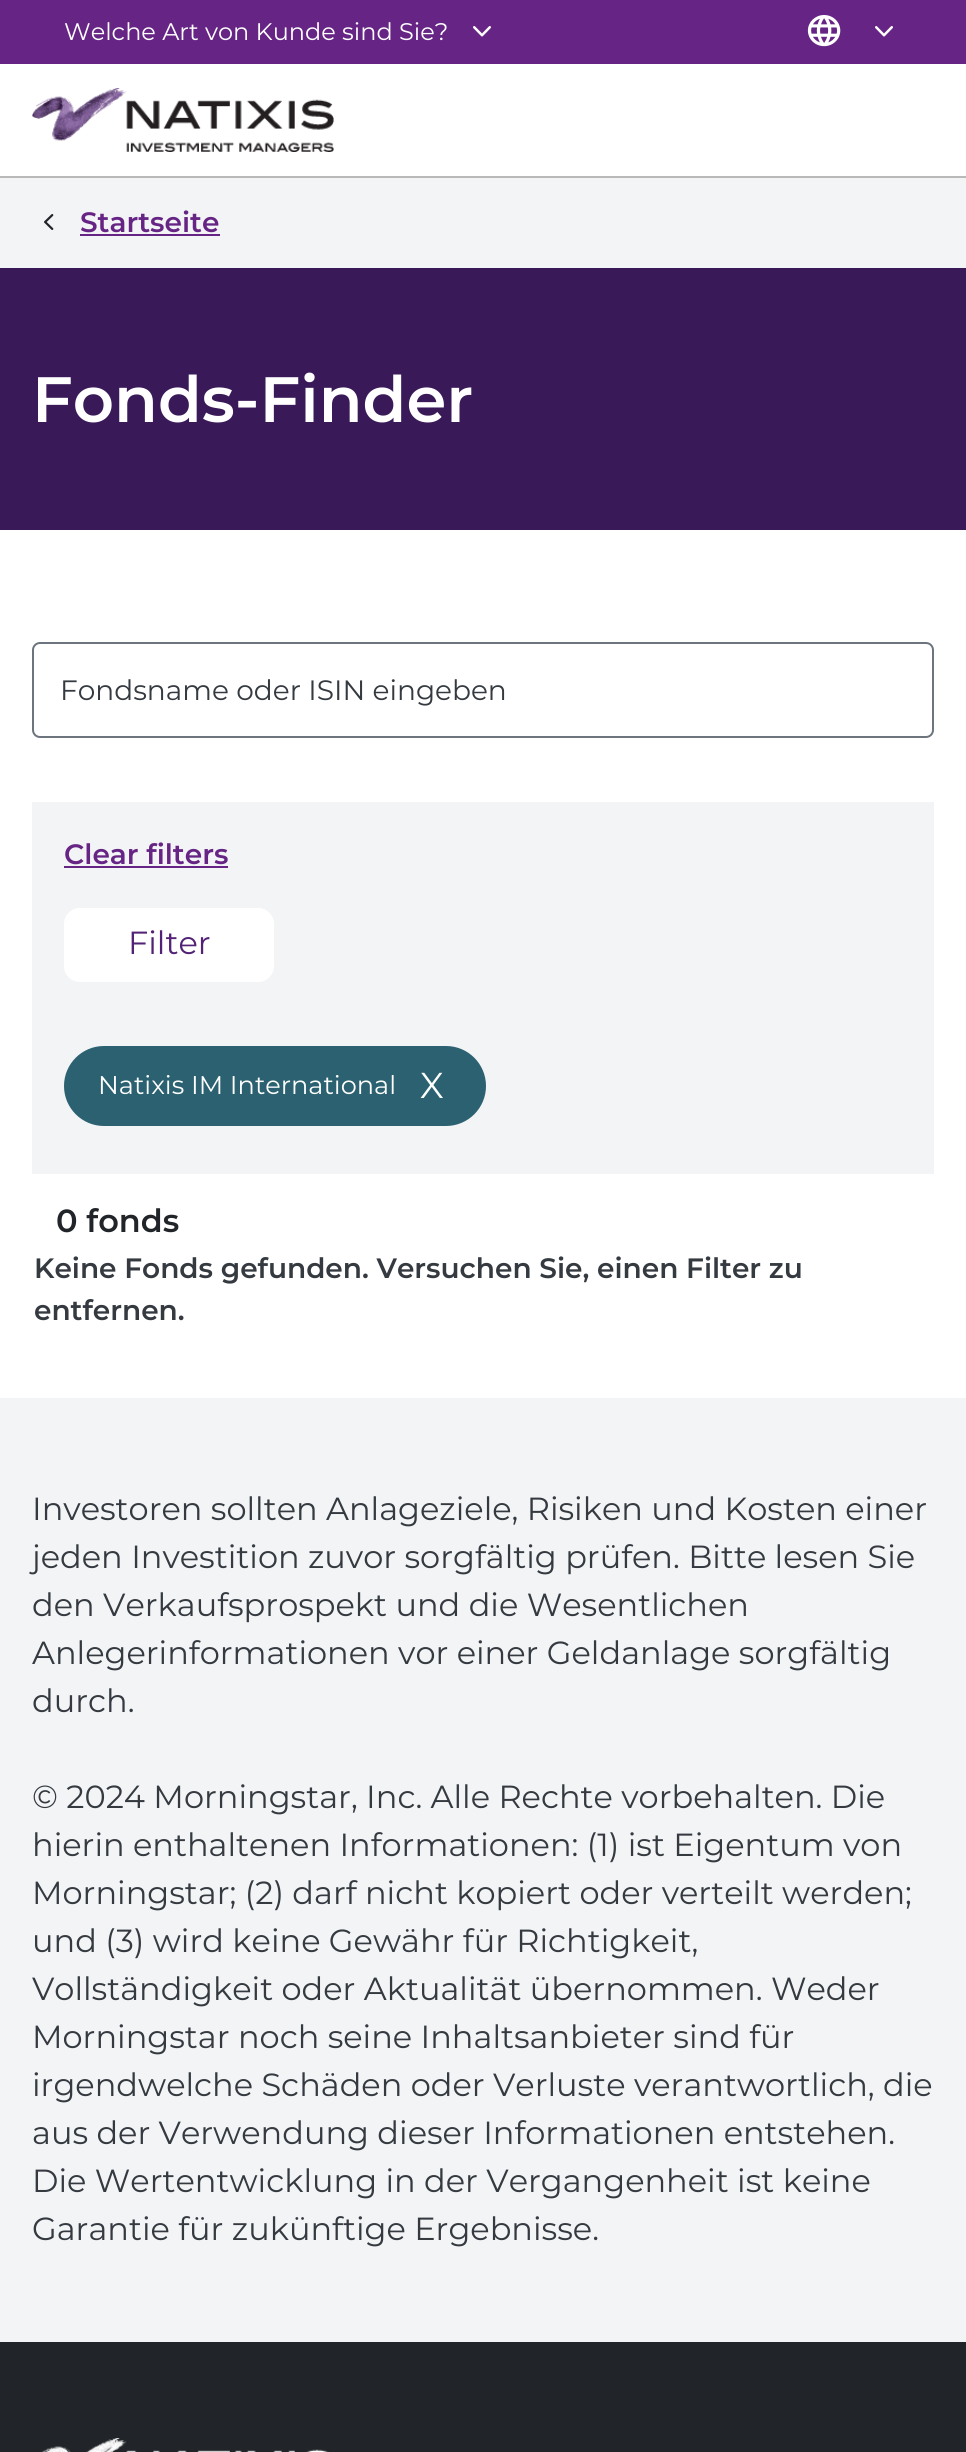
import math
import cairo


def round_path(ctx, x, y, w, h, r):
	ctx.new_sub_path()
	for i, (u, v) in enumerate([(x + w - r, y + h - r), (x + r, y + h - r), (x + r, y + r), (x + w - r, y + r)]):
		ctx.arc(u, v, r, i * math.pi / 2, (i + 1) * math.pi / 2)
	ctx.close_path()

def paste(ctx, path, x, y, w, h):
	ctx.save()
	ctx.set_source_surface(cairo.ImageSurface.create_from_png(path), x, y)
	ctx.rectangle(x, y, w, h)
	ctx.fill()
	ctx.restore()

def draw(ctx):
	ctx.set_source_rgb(1, 1, 1)
	ctx.paint()
	ctx.set_source_rgb(0.4, 0.145, 0.518)
	ctx.rectangle(0, 0, 966, 64)
	ctx.fill()
	ctx.select_font_face('Montserrat')
	ctx.set_font_size(24)
	ctx.set_source_rgb(1, 1, 1)
	ctx.move_to(64, 40)
	ctx.show_text('Welche Art von Kunde sind Sie?')
	paste(ctx, 'media/1.png', 473, 26, 18, 11)
	paste(ctx, 'media/2.png', 807, 15, 34, 32)
	paste(ctx, 'media/1.png', 875, 26, 18, 11)
	ctx.set_source_rgb(0.725, 0.725, 0.725)
	ctx.rectangle(0, 176, 966, 2)
	ctx.fill()
	paste(ctx, 'media/3.png', 32, 88, 302, 64)
	ctx.set_source_rgb(0.953, 0.957, 0.961)
	ctx.rectangle(0, 178, 966, 90)
	ctx.fill()
	paste(ctx, 'media/4.png', 44, 214, 10, 16)
	ctx.select_font_face('Montserrat SemiBold')
	ctx.set_font_size(28)
	ctx.set_source_rgb(0.4, 0.145, 0.518)
	ctx.move_to(80, 232)
	ctx.show_text('Startseite')
	ctx.rectangle(80, 234, 140, 2)
	ctx.fill()
	ctx.set_source_rgb(0.224, 0.098, 0.345)
	ctx.rectangle(0, 268, 966, 262)
	ctx.fill()
	ctx.set_font_size(64)
	ctx.set_source_rgb(1, 1, 1)
	ctx.move_to(32, 422)
	ctx.show_text('Fonds-Finder')
	round_path(ctx, 33, 643, 900, 94, 7)
	ctx.set_source_rgb(0.424, 0.459, 0.49)
	ctx.stroke()
	ctx.select_font_face('Montserrat')
	ctx.set_font_size(28)
	ctx.set_source_rgb(0.204, 0.227, 0.251)
	ctx.move_to(60, 700)
	ctx.show_text('Fondsname oder ISIN eingeben')
	ctx.set_source_rgb(0.953, 0.957, 0.961)
	ctx.rectangle(32, 802, 902, 372)
	ctx.fill()
	ctx.select_font_face('Montserrat SemiBold')
	ctx.set_source_rgb(0.4, 0.145, 0.518)
	ctx.move_to(64, 864)
	ctx.show_text('Clear filters')
	ctx.rectangle(64, 866, 164, 2)
	ctx.fill()
	ctx.set_source_rgb(1, 1, 1)
	round_path(ctx, 64, 908, 210, 74, 16)
	ctx.fill()
	ctx.select_font_face('Montserrat')
	ctx.set_font_size(32)
	ctx.set_source_rgb(0.318, 0.133, 0.459)
	ctx.move_to(128, 954)
	ctx.show_text('Filter')
	ctx.set_source_rgb(0.169, 0.38, 0.439)
	round_path(ctx, 65, 1047, 420, 78, 39)
	ctx.fill_preserve()
	ctx.stroke()
	ctx.set_font_size(25.6)
	ctx.set_source_rgb(1, 1, 1)
	ctx.move_to(98, 1094)
	ctx.show_text('Natixis IM International')
	ctx.set_font_size(36)
	ctx.move_to(420, 1098)
	ctx.show_text('X')
	ctx.select_font_face('Montserrat SemiBold')
	ctx.set_font_size(32)
	ctx.set_source_rgb(0.129, 0.145, 0.161)
	ctx.move_to(56, 1232)
	ctx.show_text('0 fonds')
	ctx.set_font_size(28)
	ctx.set_source_rgb(0.204, 0.227, 0.251)
	ctx.move_to(34, 1278)
	ctx.show_text('Keine Fonds gefunden. Versuchen Sie, einen Filter zu')
	ctx.move_to(34, 1320)
	ctx.show_text('entfernen.')
	ctx.set_source_rgb(0.953, 0.957, 0.961)
	ctx.rectangle(0, 1398, 966, 944)
	ctx.fill()
	ctx.select_font_face('Montserrat')
	ctx.set_font_size(32)
	ctx.set_source_rgb(0.204, 0.227, 0.251)
	for x, y, s in [
		(32, 1520, 'Investoren sollten Anlageziele, Risiken und Kosten einer'),
		(32, 1568, 'jeden Investition zuvor sorgfältig prüfen. Bitte lesen Sie'),
		(32, 1616, 'den Verkaufsprospekt und die Wesentlichen'),
		(32, 1664, 'Anlegerinformationen vor einer Geldanlage sorgfältig'),
		(32, 1712, 'durch.'),
		(32, 1808, '© 2024 Morningstar, Inc. Alle Rechte vorbehalten. Die'),
		(32, 1856, 'hierin enthaltenen Informationen: (1) ist Eigentum von'),
		(32, 1904, 'Morningstar; (2) darf nicht kopiert oder verteilt werden;'),
		(32, 1952, 'und (3) wird keine Gewähr für Richtigkeit,'),
		(32, 2000, 'Vollständigkeit oder Aktualität übernommen. Weder'),
		(32, 2048, 'Morningstar noch seine Inhaltsanbieter sind für'),
		(32, 2096, 'irgendwelche Schäden oder Verluste verantwortlich, die'),
		(32, 2144, 'aus der Verwendung dieser Informationen entstehen.'),
		(32, 2192, 'Die Wertentwicklung in der Vergangenheit ist keine'),
		(32, 2240, 'Garantie für zukünftige Ergebnisse.'),
	]:
		ctx.move_to(x, y)
		ctx.show_text(s)
	ctx.set_source_rgb(0.129, 0.145, 0.161)
	ctx.rectangle(0, 2342, 966, 110)
	ctx.fill()
	paste(ctx, 'media/5.png', 41, 2438, 288, 14)


surface = cairo.ImageSurface(cairo.FORMAT_RGB24, 966, 2452)
ctx = cairo.Context(surface)
options = cairo.FontOptions()
options.set_hint_metrics(cairo.HINT_METRICS_OFF)
options.set_hint_style(cairo.HINT_STYLE_NONE)
ctx.set_font_options(options)
ctx.set_miter_limit(4)
draw(ctx)
surface.write_to_png('image.png')
